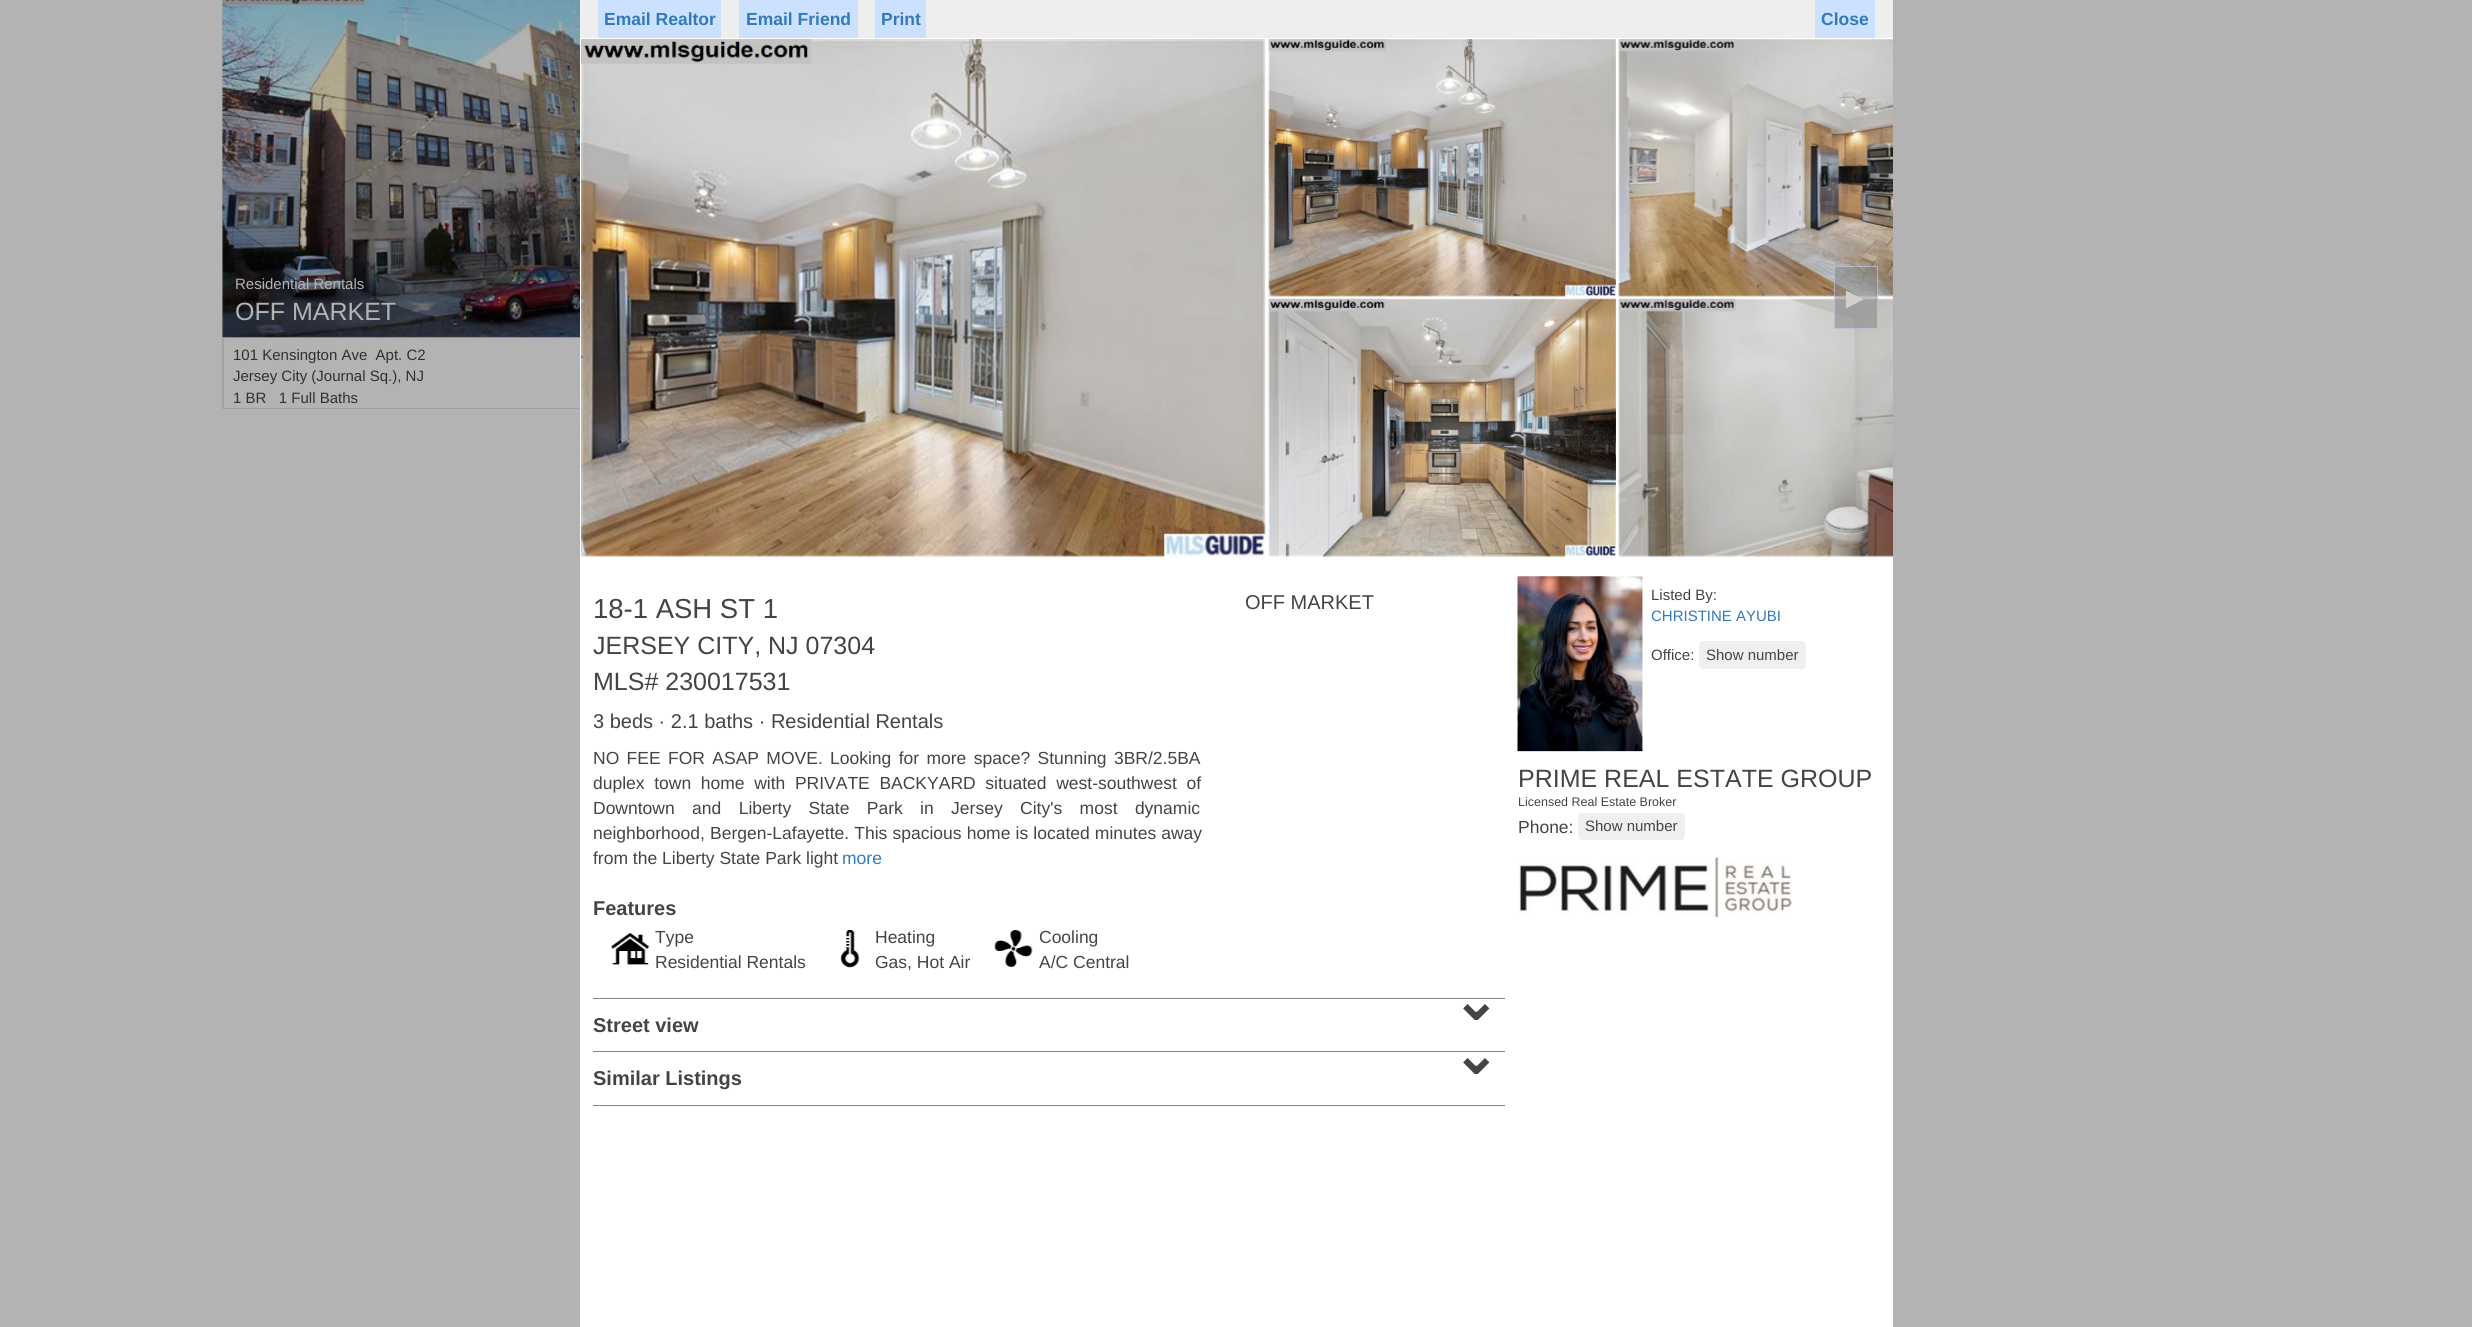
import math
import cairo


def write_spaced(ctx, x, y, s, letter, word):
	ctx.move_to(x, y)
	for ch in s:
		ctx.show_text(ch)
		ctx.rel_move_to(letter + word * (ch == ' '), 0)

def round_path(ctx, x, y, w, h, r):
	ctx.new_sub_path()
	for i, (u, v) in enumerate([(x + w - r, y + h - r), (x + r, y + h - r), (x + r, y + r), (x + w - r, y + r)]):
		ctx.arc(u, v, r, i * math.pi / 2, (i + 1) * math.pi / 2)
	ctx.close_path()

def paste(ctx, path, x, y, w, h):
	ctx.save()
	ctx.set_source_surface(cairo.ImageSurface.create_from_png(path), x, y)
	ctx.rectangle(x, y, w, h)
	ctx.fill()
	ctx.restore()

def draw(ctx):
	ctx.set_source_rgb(0.702, 0.702, 0.702)
	ctx.paint()
	paste(ctx, 'media/1.png', 222, 0, 358, 338)
	paste(ctx, 'media/2.png', 222, 0, 358, 338)
	ctx.select_font_face('Liberation Sans')
	ctx.set_font_size(15)
	ctx.set_source_rgb(0.702, 0.702, 0.702)
	ctx.move_to(235, 289)
	ctx.show_text('Residential Rentals')
	ctx.set_font_size(25)
	ctx.move_to(235, 320)
	ctx.show_text('OFF MARKET')
	ctx.set_source_rgba(0, 0, 0, 0.1)
	ctx.new_path()
	ctx.move_to(648, 409)
	ctx.line_to(222, 409)
	ctx.line_to(224, 408)
	ctx.line_to(646, 408)
	ctx.close_path()
	ctx.fill()
	ctx.new_path()
	ctx.move_to(222, 409)
	ctx.line_to(222, 338)
	ctx.line_to(224, 338)
	ctx.line_to(224, 408)
	ctx.close_path()
	ctx.fill()
	ctx.set_font_size(15)
	ctx.set_source_rgb(0.188, 0.188, 0.188)
	for x, y, s in [
		(233, 360, '101 Kensington Ave  Apt. C2'),
		(233, 381, 'Jersey City (Journal Sq.), NJ'),
		(233, 403, '1 BR   1 Full Baths'),
	]:
		ctx.move_to(x, y)
		ctx.show_text(s)
	ctx.set_source_rgb(1, 1, 1)
	ctx.rectangle(580, 38, 1313, 1289)
	ctx.fill()
	ctx.set_source_rgb(0.933, 0.933, 0.933)
	ctx.rectangle(580, 0, 1313, 38)
	ctx.fill()
	ctx.set_source_rgb(0.8, 0.878, 1)
	ctx.rectangle(598, 0, 123, 38)
	ctx.fill()
	ctx.select_font_face('Liberation Sans', cairo.FONT_SLANT_NORMAL, cairo.FONT_WEIGHT_BOLD)
	ctx.set_font_size(17.5)
	ctx.set_source_rgb(0.2, 0.478, 0.718)
	ctx.move_to(604, 25)
	ctx.show_text('Email Realtor')
	ctx.set_source_rgb(0.8, 0.878, 1)
	ctx.rectangle(739, 0, 119, 38)
	ctx.fill()
	ctx.set_source_rgb(0.2, 0.478, 0.718)
	ctx.move_to(746, 25)
	ctx.show_text('Email Friend')
	ctx.set_source_rgb(0.8, 0.878, 1)
	ctx.rectangle(875, 0, 51, 38)
	ctx.fill()
	ctx.set_source_rgb(0.2, 0.478, 0.718)
	ctx.move_to(881, 25)
	ctx.show_text('Print')
	ctx.set_source_rgb(0.8, 0.878, 1)
	ctx.rectangle(1815, 0, 60, 38)
	ctx.fill()
	ctx.set_source_rgb(0.2, 0.478, 0.718)
	ctx.move_to(1821, 25)
	ctx.show_text('Close')
	paste(ctx, 'media/3.png', 581, 39, 685, 518)
	paste(ctx, 'media/4.png', 1268, 39, 348, 258)
	paste(ctx, 'media/5.png', 1268, 298, 348, 259)
	paste(ctx, 'media/6.png', 1618, 39, 275, 258)
	paste(ctx, 'media/7.png', 1618, 298, 275, 259)
	ctx.set_source_rgba(0.502, 0.502, 0.502, 0.5)
	ctx.rectangle(1834, 266, 44, 63)
	ctx.fill()
	ctx.rectangle(1834.5, 266.5, 43, 62)
	ctx.set_source_rgba(0.8, 0.878, 1, 0.5)
	ctx.set_line_width(1)
	ctx.stroke()
	ctx.select_font_face('Liberation Sans')
	ctx.set_font_size(30)
	ctx.set_source_rgb(0.827, 0.82, 0.812)
	ctx.move_to(1840, 308)
	ctx.show_text('►')
	ctx.set_font_size(27.5)
	ctx.set_source_rgb(0.267, 0.267, 0.267)
	ctx.move_to(593, 618)
	ctx.show_text('18-1 ASH ST 1')
	ctx.set_font_size(25)
	ctx.move_to(593, 654)
	ctx.show_text('JERSEY CITY, NJ 07304')
	ctx.move_to(593, 690)
	ctx.show_text('MLS# 230017531')
	ctx.set_font_size(20)
	ctx.move_to(593, 728)
	ctx.show_text('3 beds · 2.1 baths · Residential Rentals')
	ctx.move_to(1245, 609)
	ctx.show_text('OFF MARKET')
	ctx.set_font_size(17.5)
	write_spaced(ctx, 593, 764, 'NO FEE FOR ASAP MOVE.', 0, 2.5)
	write_spaced(ctx, 830, 764, 'Looking for more space? Stunning 3BR/2.5BA', 0, 2.5)
	write_spaced(ctx, 593, 789, 'duplex town home with PRIVATE BACKYARD situated west-southwest of', 0, 4.75)
	write_spaced(ctx, 593, 814, 'Downtown and Liberty State Park in Jersey City\'s most dynamic', 0, 12.5)
	write_spaced(ctx, 593, 839, 'neighborhood, Bergen-Lafayette. This spacious home is located minutes away', 0, 0.25)
	ctx.move_to(593, 864)
	ctx.show_text('from the Liberty State Park light')
	ctx.set_source_rgb(0.2, 0.478, 0.718)
	ctx.move_to(842, 864)
	ctx.show_text('more')
	ctx.select_font_face('Liberation Sans', cairo.FONT_SLANT_NORMAL, cairo.FONT_WEIGHT_BOLD)
	ctx.set_font_size(20)
	ctx.set_source_rgb(0.267, 0.267, 0.267)
	ctx.move_to(593, 915)
	ctx.show_text('Features')
	paste(ctx, 'media/8.png', 611, 932, 39, 33)
	ctx.select_font_face('Liberation Sans')
	ctx.set_font_size(17.5)
	ctx.move_to(655, 943)
	ctx.show_text('Type')
	ctx.move_to(655, 968)
	ctx.show_text('Residential Rentals')
	paste(ctx, 'media/9.png', 840, 930, 20, 38)
	ctx.move_to(875, 943)
	ctx.show_text('Heating')
	ctx.move_to(875, 968)
	ctx.show_text('Gas, Hot Air')
	paste(ctx, 'media/10.png', 994, 930, 39, 37)
	ctx.move_to(1039, 943)
	ctx.show_text('Cooling')
	ctx.move_to(1039, 968)
	ctx.show_text('A/C Central')
	ctx.set_source_rgb(0.502, 0.502, 0.502)
	ctx.rectangle(593, 998, 912, 1)
	ctx.fill()
	ctx.select_font_face('DejaVu Sans', cairo.FONT_SLANT_NORMAL, cairo.FONT_WEIGHT_BOLD)
	ctx.set_font_size(56)
	ctx.set_source_rgb(0.267, 0.267, 0.267)
	ctx.move_to(1452, 1020)
	ctx.show_text('⌄')
	ctx.select_font_face('Liberation Sans', cairo.FONT_SLANT_NORMAL, cairo.FONT_WEIGHT_BOLD)
	ctx.set_font_size(20)
	ctx.move_to(593, 1032)
	ctx.show_text('Street view')
	ctx.set_source_rgb(0.502, 0.502, 0.502)
	ctx.rectangle(593, 1051, 912, 1)
	ctx.fill()
	ctx.select_font_face('DejaVu Sans', cairo.FONT_SLANT_NORMAL, cairo.FONT_WEIGHT_BOLD)
	ctx.set_font_size(56)
	ctx.set_source_rgb(0.267, 0.267, 0.267)
	ctx.move_to(1452, 1074)
	ctx.show_text('⌄')
	ctx.select_font_face('Liberation Sans', cairo.FONT_SLANT_NORMAL, cairo.FONT_WEIGHT_BOLD)
	ctx.set_font_size(20)
	ctx.move_to(593, 1085)
	ctx.show_text('Similar Listings')
	ctx.set_source_rgb(0.502, 0.502, 0.502)
	ctx.rectangle(593, 1105, 912, 1)
	ctx.fill()
	paste(ctx, 'media/11.png', 1517, 576, 126, 176)
	ctx.select_font_face('Liberation Sans')
	ctx.set_font_size(15)
	ctx.set_source_rgb(0.267, 0.267, 0.267)
	ctx.move_to(1651, 600)
	ctx.show_text('Listed By:')
	ctx.set_source_rgb(0.2, 0.478, 0.718)
	ctx.move_to(1651, 621)
	ctx.show_text('CHRISTINE AYUBI')
	ctx.set_source_rgb(0.267, 0.267, 0.267)
	ctx.move_to(1651, 660)
	ctx.show_text('Office:')
	ctx.set_source_rgb(0.937, 0.937, 0.937)
	round_path(ctx, 1699, 641, 107, 28, 4)
	ctx.fill()
	ctx.set_source_rgb(0.267, 0.267, 0.267)
	ctx.move_to(1706, 660)
	ctx.show_text('Show number')
	ctx.set_font_size(25)
	ctx.move_to(1518, 787)
	ctx.show_text('PRIME REAL ESTATE GROUP')
	ctx.set_font_size(12.5)
	ctx.move_to(1518, 806)
	ctx.show_text('Licensed Real Estate Broker')
	ctx.set_font_size(17.5)
	ctx.move_to(1518, 833)
	ctx.show_text('Phone:')
	ctx.set_source_rgb(0.937, 0.937, 0.937)
	round_path(ctx, 1578, 813, 107, 27, 4)
	ctx.fill()
	ctx.set_font_size(15)
	ctx.set_source_rgb(0.267, 0.267, 0.267)
	ctx.move_to(1585, 831)
	ctx.show_text('Show number')
	paste(ctx, 'media/12.png', 1518, 856, 274, 62)


surface = cairo.ImageSurface(cairo.FORMAT_RGB24, 2472, 1327)
ctx = cairo.Context(surface)
options = cairo.FontOptions()
options.set_hint_metrics(cairo.HINT_METRICS_OFF)
options.set_hint_style(cairo.HINT_STYLE_NONE)
ctx.set_font_options(options)
ctx.set_miter_limit(4)
draw(ctx)
surface.write_to_png('image.png')
